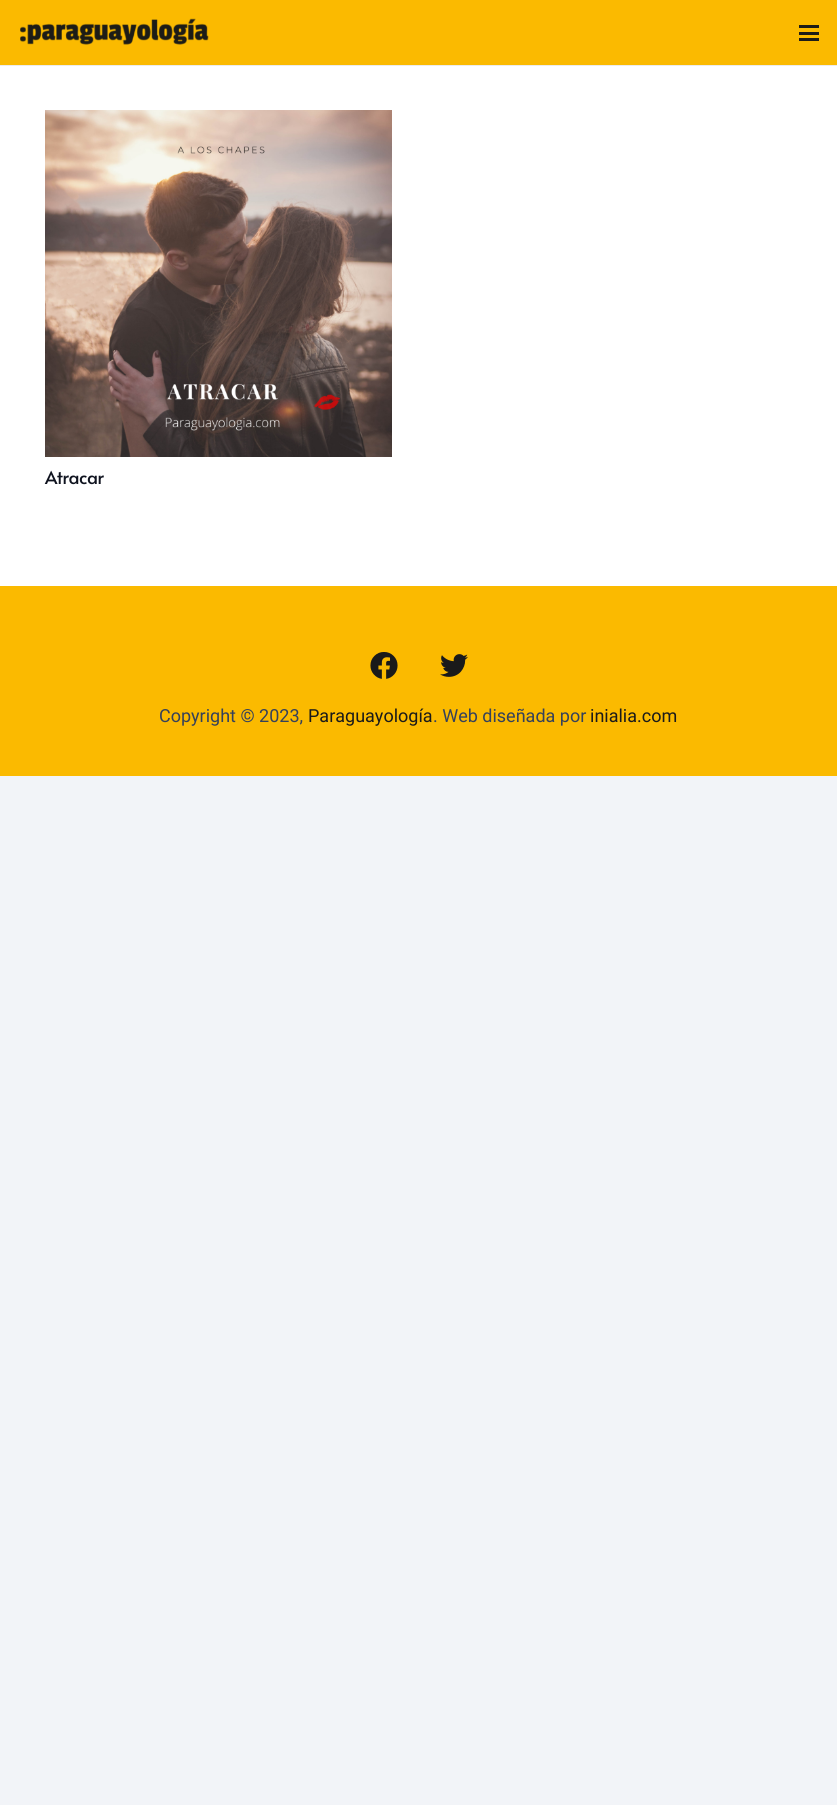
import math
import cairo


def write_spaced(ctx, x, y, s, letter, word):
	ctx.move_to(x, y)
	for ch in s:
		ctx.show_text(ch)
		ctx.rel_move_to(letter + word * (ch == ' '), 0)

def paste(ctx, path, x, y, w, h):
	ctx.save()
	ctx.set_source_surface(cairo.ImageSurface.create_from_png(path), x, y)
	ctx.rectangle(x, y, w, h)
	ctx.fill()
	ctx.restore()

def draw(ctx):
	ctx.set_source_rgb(0.949, 0.957, 0.969)
	ctx.paint()
	ctx.set_source_rgb(1, 1, 1)
	ctx.rectangle(0, 66, 837, 520)
	ctx.fill()
	ctx.set_source_rgb(0.922, 0.922, 0.922)
	ctx.rectangle(0, 65, 837, 1)
	ctx.fill()
	ctx.set_source_rgb(0.984, 0.729, 0)
	ctx.rectangle(0, 0, 837, 65)
	ctx.fill()
	paste(ctx, 'media/1.png', 20, 18, 189, 27)
	ctx.set_source_rgb(0.114, 0.11, 0.094)
	ctx.rectangle(799, 32, 20, 3)
	ctx.rectangle(799, 25, 20, 3)
	ctx.rectangle(799, 38, 20, 3)
	ctx.fill()
	paste(ctx, 'media/2.png', 45, 110, 347, 347)
	ctx.select_font_face('Alata')
	ctx.set_font_size(18)
	ctx.set_source_rgb(0.059, 0.075, 0.122)
	write_spaced(ctx, 45, 484, 'Atracar', -0.5, 0)
	ctx.set_source_rgb(0.984, 0.729, 0)
	ctx.rectangle(0, 586, 837, 190)
	ctx.fill()
	paste(ctx, 'media/3.png', 370, 652, 28, 27)
	paste(ctx, 'media/4.png', 440, 654, 28, 23)
	ctx.select_font_face('Roboto')
	ctx.set_source_rgb(0.208, 0.255, 0.357)
	ctx.move_to(159, 722)
	ctx.show_text('Copyright © 2023,')
	ctx.set_source_rgb(0.102, 0.102, 0.102)
	ctx.move_to(308, 722)
	ctx.show_text('Paraguayología')
	ctx.set_source_rgb(0.208, 0.255, 0.357)
	ctx.move_to(433, 722)
	ctx.show_text('. Web diseñada por')
	ctx.set_source_rgb(0.102, 0.102, 0.102)
	ctx.move_to(590, 722)
	ctx.show_text('inialia.com')


surface = cairo.ImageSurface(cairo.FORMAT_RGB24, 837, 1805)
ctx = cairo.Context(surface)
options = cairo.FontOptions()
options.set_hint_metrics(cairo.HINT_METRICS_OFF)
options.set_hint_style(cairo.HINT_STYLE_NONE)
ctx.set_font_options(options)
ctx.set_miter_limit(4)
draw(ctx)
surface.write_to_png('image.png')
